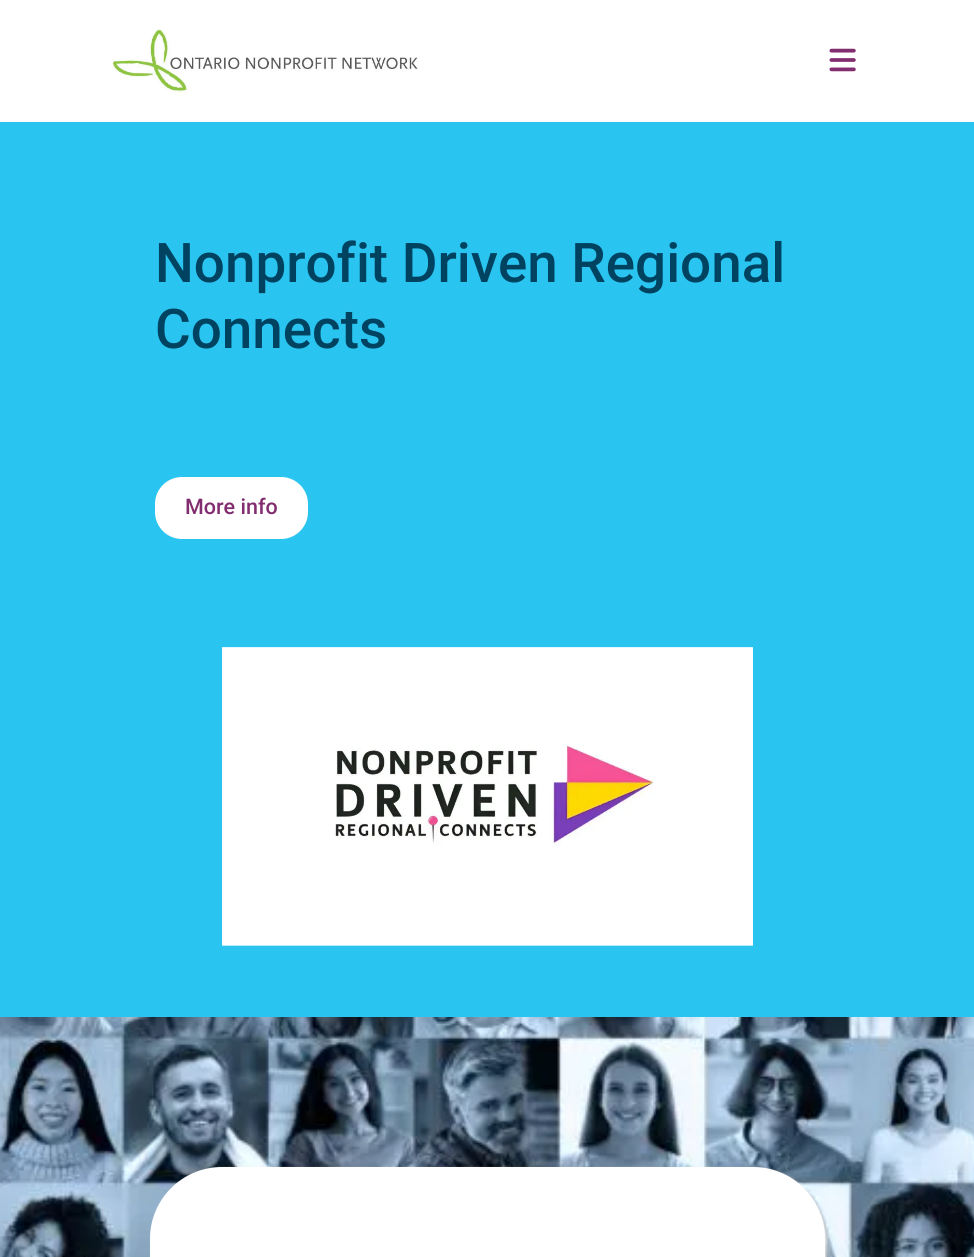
import math
import cairo


def round_path(ctx, x, y, w, h, r):
	ctx.new_sub_path()
	for i, (u, v) in enumerate([(x + w - r, y + h - r), (x + r, y + h - r), (x + r, y + r), (x + w - r, y + r)]):
		ctx.arc(u, v, r, i * math.pi / 2, (i + 1) * math.pi / 2)
	ctx.close_path()

def blur_box(ctx, x, y, w, h, r, blur, alpha):
	ctx.push_group_with_content(cairo.CONTENT_ALPHA)
	ctx.set_operator(cairo.OPERATOR_SOURCE)
	for i in range(15, -16, -2):
		e = blur * i / 6
		if min(w, h) + 2 * e > 0:
			ctx.set_source_rgba(0, 0, 0, alpha * math.erfc((i - 1) / 8.5) / 2)
			round_path(ctx, x - e, y - e, w + 2 * e, h + 2 * e, max(0, min(r + e + blur * .6, min(w, h) / 2 + e)))
			ctx.fill()
	ctx.mask(ctx.pop_group())

def paste(ctx, path, x, y, w, h):
	ctx.save()
	ctx.set_source_surface(cairo.ImageSurface.create_from_png(path), x, y)
	ctx.rectangle(x, y, w, h)
	ctx.fill()
	ctx.restore()

def draw(ctx):
	ctx.set_source_rgb(0.165, 0.769, 0.941)
	ctx.paint()
	ctx.set_source_rgb(1, 1, 1)
	ctx.rectangle(0, 0, 974, 122)
	ctx.fill()
	paste(ctx, 'media/1.png', 111, 28, 307, 65)
	paste(ctx, 'media/2.png', 829, 48, 27, 24)
	ctx.select_font_face('Roboto Medium')
	ctx.set_font_size(54.75)
	ctx.set_source_rgb(0, 0.263, 0.38)
	ctx.move_to(155, 282)
	ctx.show_text('Nonprofit Driven Regional')
	ctx.move_to(155, 348)
	ctx.show_text('Connects')
	ctx.set_source_rgb(1, 1, 1)
	round_path(ctx, 156.5, 478.5, 150, 59, 25.5)
	ctx.fill_preserve()
	ctx.set_line_width(3)
	ctx.stroke()
	ctx.set_font_size(21.5)
	ctx.set_source_rgb(0.506, 0.176, 0.435)
	ctx.move_to(185, 514)
	ctx.show_text('More info')
	paste(ctx, 'media/3.png', 222, 647, 531, 299)
	paste(ctx, 'media/4.png', 0, 1017, 974, 240)
	ctx.set_source_rgb(0.918, 0.918, 0.918)
	blur_box(ctx, 152, 1169, 675, 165, 72, 1.5, 1)
	ctx.set_source_rgb(1, 1, 1)
	round_path(ctx, 150, 1167, 675, 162, 72)
	ctx.fill()


surface = cairo.ImageSurface(cairo.FORMAT_RGB24, 974, 1257)
ctx = cairo.Context(surface)
options = cairo.FontOptions()
options.set_hint_metrics(cairo.HINT_METRICS_OFF)
options.set_hint_style(cairo.HINT_STYLE_NONE)
ctx.set_font_options(options)
ctx.set_miter_limit(4)
draw(ctx)
surface.write_to_png('image.png')
